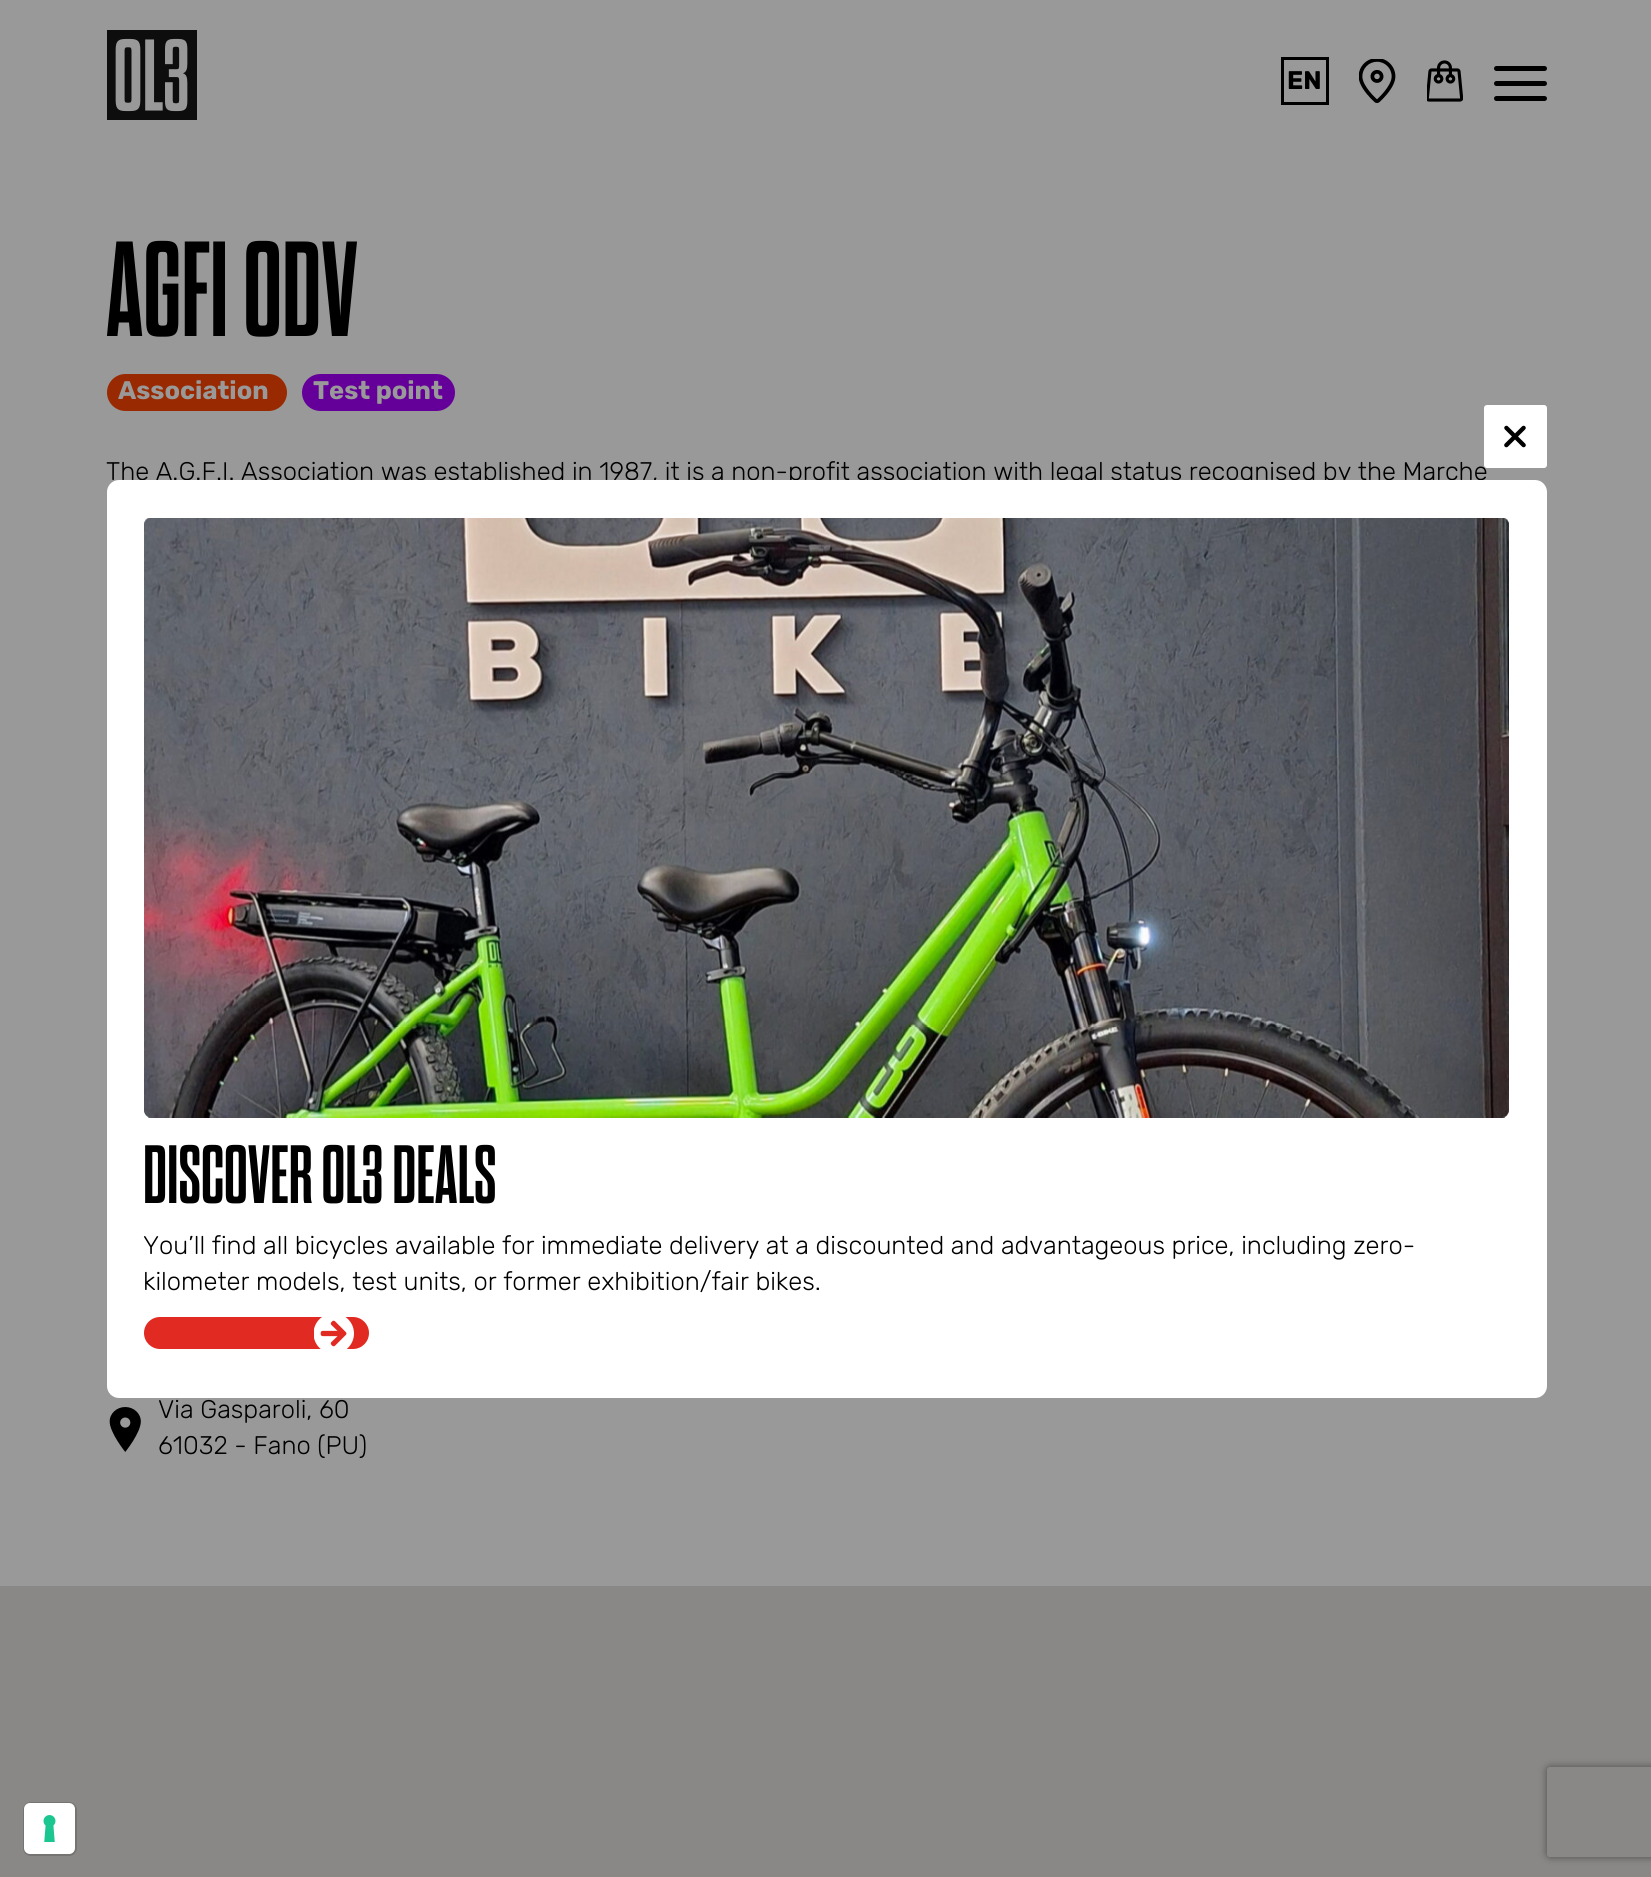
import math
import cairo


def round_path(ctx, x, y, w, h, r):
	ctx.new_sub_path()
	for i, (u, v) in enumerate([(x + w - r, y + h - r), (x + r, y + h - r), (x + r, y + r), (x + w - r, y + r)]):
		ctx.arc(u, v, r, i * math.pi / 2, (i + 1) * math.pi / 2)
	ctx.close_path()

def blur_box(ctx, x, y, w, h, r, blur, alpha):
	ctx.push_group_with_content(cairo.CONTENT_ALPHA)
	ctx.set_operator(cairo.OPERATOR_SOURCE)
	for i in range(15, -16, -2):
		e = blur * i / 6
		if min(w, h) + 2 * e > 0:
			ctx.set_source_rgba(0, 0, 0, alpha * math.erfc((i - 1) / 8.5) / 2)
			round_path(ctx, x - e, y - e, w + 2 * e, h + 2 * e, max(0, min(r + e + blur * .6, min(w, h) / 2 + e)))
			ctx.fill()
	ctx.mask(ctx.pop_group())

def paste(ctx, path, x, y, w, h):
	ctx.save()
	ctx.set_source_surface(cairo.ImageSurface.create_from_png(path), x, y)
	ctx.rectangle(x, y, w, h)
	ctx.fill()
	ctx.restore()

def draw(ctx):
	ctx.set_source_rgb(0.6, 0.6, 0.6)
	ctx.paint()
	paste(ctx, 'media/1.png', 107, 30, 90, 90)
	ctx.rectangle(1282.5, 58.5, 45, 45)
	ctx.set_source_rgb(0, 0, 0)
	ctx.set_line_width(3)
	ctx.stroke()
	ctx.select_font_face('Rubik', cairo.FONT_SLANT_NORMAL, cairo.FONT_WEIGHT_BOLD)
	ctx.set_font_size(25.5)
	ctx.move_to(1287, 89)
	ctx.show_text('EN')
	paste(ctx, 'media/2.png', 1359, 59, 37, 44)
	paste(ctx, 'media/3.png', 1427, 60, 36, 42)
	round_path(ctx, 1494, 66, 53, 5, 2.5)
	ctx.fill()
	round_path(ctx, 1494, 81, 53, 5, 2.5)
	ctx.fill()
	round_path(ctx, 1494, 96, 53, 5, 2.5)
	ctx.fill()
	ctx.select_font_face('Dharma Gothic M', cairo.FONT_SLANT_NORMAL, cairo.FONT_WEIGHT_BOLD)
	ctx.set_font_size(135)
	ctx.move_to(106, 336)
	ctx.show_text('AGFI ODV')
	ctx.set_source_rgb(0.6, 0.161, 0)
	round_path(ctx, 107, 374, 180, 37, 18.5)
	ctx.fill()
	ctx.select_font_face('Rubik', cairo.FONT_SLANT_NORMAL, cairo.FONT_WEIGHT_BOLD)
	ctx.set_font_size(25.5)
	ctx.set_source_rgb(0.6, 0.6, 0.6)
	ctx.move_to(118, 399)
	ctx.show_text('Association')
	ctx.set_source_rgb(0.392, 0, 0.6)
	round_path(ctx, 302, 374, 153, 37, 18.5)
	ctx.fill()
	ctx.set_source_rgb(0.6, 0.6, 0.6)
	ctx.move_to(313, 399)
	ctx.show_text('Test point')
	ctx.select_font_face('Rubik Light')
	ctx.set_source_rgb(0, 0, 0)
	ctx.move_to(106, 480)
	ctx.show_text('The A.G.F.I. Association was established in 1987, it is a non-profit association with legal status recognised by the Marche')
	paste(ctx, 'media/4.png', 109, 1407, 32, 45)
	ctx.move_to(158, 1418)
	ctx.show_text('Via Gasparoli, 60')
	ctx.move_to(158, 1454)
	ctx.show_text('61032 - Fano (PU)')
	ctx.set_source_rgb(0.537, 0.533, 0.525)
	ctx.rectangle(0, 1586, 1651, 291)
	ctx.fill()
	ctx.set_source_rgb(1, 1, 1)
	round_path(ctx, 107, 480, 1440, 918, 12)
	ctx.fill()
	round_path(ctx, 1485, 406, 61, 61, 2)
	ctx.fill_preserve()
	ctx.set_line_width(2)
	ctx.stroke()
	paste(ctx, 'media/5.png', 1504, 425, 22, 23)
	paste(ctx, 'media/6.png', 144, 518, 1365, 600)
	paste(ctx, 'media/7.png', 144, 518, 1365, 600)
	ctx.select_font_face('Dharma Gothic M', cairo.FONT_SLANT_NORMAL, cairo.FONT_WEIGHT_BOLD)
	ctx.set_font_size(82.5)
	ctx.set_source_rgb(0, 0, 0)
	ctx.move_to(143, 1203)
	ctx.show_text('DISCOVER OL3 DEALS')
	ctx.select_font_face('Rubik Light')
	ctx.set_font_size(25.5)
	ctx.move_to(143, 1254)
	ctx.show_text('You’ll find all bicycles available for immediate delivery at a discounted and advantageous price, including zero-')
	ctx.move_to(143, 1290)
	ctx.show_text('kilometer models, test units, or former exhibition/fair bikes.')
	ctx.set_source_rgb(0.878, 0.165, 0.133)
	round_path(ctx, 144, 1317, 225, 32, 16)
	ctx.fill()
	paste(ctx, 'media/8.png', 314, 1317, 40, 32)
	round_path(ctx, 24, 1803, 52, 52, 7)
	ctx.set_source_rgb(0.459, 0.455, 0.447)
	ctx.stroke()
	ctx.set_source_rgb(1, 1, 1)
	round_path(ctx, 24, 1803, 51, 51, 6)
	ctx.fill()
	paste(ctx, 'media/9.png', 43, 1815, 13, 27)
	ctx.save()
	ctx.set_fill_rule(cairo.FILL_RULE_EVEN_ODD)
	ctx.new_path()
	ctx.move_to(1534, 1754)
	ctx.line_to(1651, 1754)
	ctx.line_to(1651, 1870)
	ctx.line_to(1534, 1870)
	ctx.close_path()
	ctx.move_to(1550, 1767)
	ctx.line_to(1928, 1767)
	ctx.curve_to(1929.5, 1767, 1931, 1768.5, 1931, 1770)
	ctx.line_to(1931, 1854)
	ctx.curve_to(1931, 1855.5, 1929.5, 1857, 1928, 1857)
	ctx.line_to(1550, 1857)
	ctx.curve_to(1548.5, 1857, 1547, 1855.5, 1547, 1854)
	ctx.line_to(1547, 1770)
	ctx.curve_to(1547, 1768.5, 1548.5, 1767, 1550, 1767)
	ctx.close_path()
	ctx.clip()
	ctx.set_source_rgb(0.302, 0.302, 0.302)
	blur_box(ctx, 1547, 1767, 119, 90, 3, 4, 1)
	ctx.restore()


surface = cairo.ImageSurface(cairo.FORMAT_RGB24, 1651, 1877)
ctx = cairo.Context(surface)
options = cairo.FontOptions()
options.set_hint_metrics(cairo.HINT_METRICS_OFF)
options.set_hint_style(cairo.HINT_STYLE_NONE)
ctx.set_font_options(options)
ctx.set_miter_limit(4)
draw(ctx)
surface.write_to_png('image.png')
